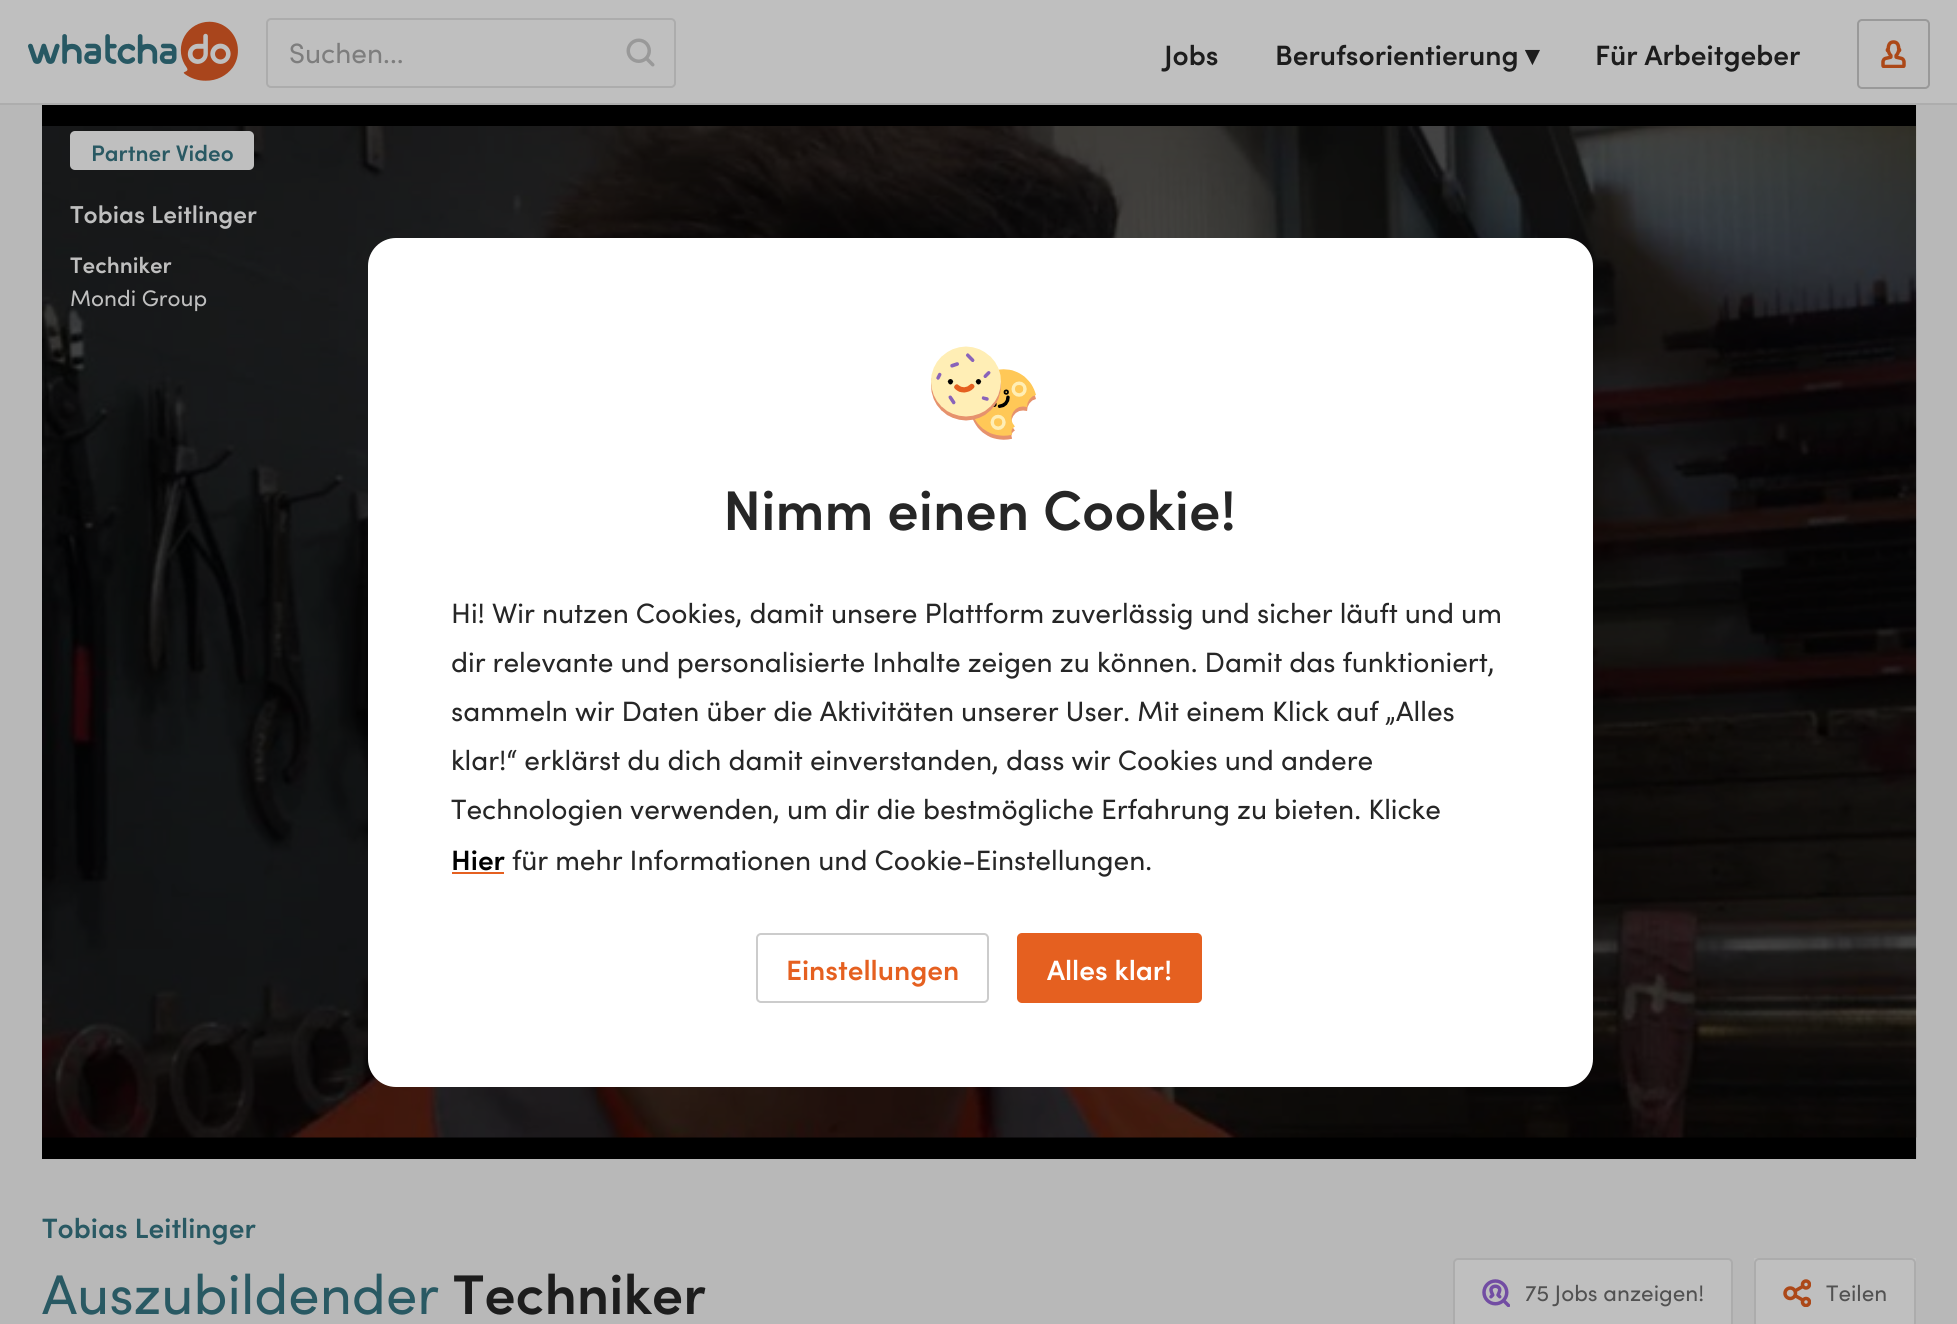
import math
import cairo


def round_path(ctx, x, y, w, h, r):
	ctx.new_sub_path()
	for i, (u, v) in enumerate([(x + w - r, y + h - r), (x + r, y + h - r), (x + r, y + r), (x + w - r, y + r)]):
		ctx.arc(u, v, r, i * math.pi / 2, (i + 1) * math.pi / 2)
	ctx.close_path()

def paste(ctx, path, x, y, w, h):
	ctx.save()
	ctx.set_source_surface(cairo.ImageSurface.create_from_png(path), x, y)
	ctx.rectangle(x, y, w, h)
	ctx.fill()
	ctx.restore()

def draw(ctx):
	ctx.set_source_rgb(0.722, 0.722, 0.722)
	ctx.paint()
	ctx.set_source_rgb(0.749, 0.749, 0.749)
	ctx.rectangle(0, 0, 1957, 103)
	ctx.fill()
	ctx.set_source_rgb(0.678, 0.678, 0.678)
	ctx.rectangle(0, 103, 1957, 2)
	ctx.fill()
	paste(ctx, 'media/1.png', 28, 21, 210, 60)
	round_path(ctx, 267, 19, 408, 68, 4)
	ctx.set_source_rgb(0.675, 0.675, 0.675)
	ctx.stroke()
	ctx.select_font_face('Sofia')
	ctx.set_font_size(28)
	ctx.set_source_rgb(0.49, 0.49, 0.49)
	ctx.move_to(289, 63)
	ctx.show_text('Suchen...')
	paste(ctx, 'media/2.png', 626, 38, 29, 29)
	ctx.select_font_face('Sofia SemiBold')
	ctx.set_source_rgb(0.114, 0.114, 0.114)
	ctx.move_to(1164, 65)
	ctx.show_text('Jobs')
	ctx.move_to(1275, 65)
	ctx.show_text('Berufsorientierung')
	ctx.select_font_face('DejaVu Sans', cairo.FONT_SLANT_NORMAL, cairo.FONT_WEIGHT_BOLD)
	ctx.move_to(1525, 65)
	ctx.show_text('▾')
	ctx.select_font_face('Sofia SemiBold')
	ctx.move_to(1595, 65)
	ctx.show_text('Für Arbeitgeber')
	round_path(ctx, 1858, 20, 71, 68, 4)
	ctx.set_source_rgb(0.6, 0.6, 0.6)
	ctx.stroke()
	paste(ctx, 'media/3.png', 1881, 40, 25, 28)
	ctx.set_source_rgb(0, 0, 0)
	ctx.rectangle(42, 105, 1874, 1054)
	ctx.fill()
	paste(ctx, 'media/6.png', 1916, 105, 1, 1054)
	paste(ctx, 'media/5.png', 1916, 126, 1, 1012)
	paste(ctx, 'media/4.png', 42, 126, 1875, 1012)
	ctx.set_source_rgb(0.749, 0.749, 0.749)
	round_path(ctx, 70, 131, 184, 39, 5)
	ctx.fill()
	ctx.set_font_size(22.5)
	ctx.set_source_rgb(0.161, 0.349, 0.388)
	ctx.move_to(91, 161)
	ctx.show_text('Partner Video')
	ctx.set_font_size(24.5)
	ctx.set_source_rgb(0.749, 0.749, 0.749)
	ctx.move_to(70, 223)
	ctx.show_text('Tobias Leitlinger')
	ctx.set_font_size(22.5)
	ctx.move_to(70, 273)
	ctx.show_text('Techniker')
	ctx.select_font_face('Sofia')
	ctx.move_to(70, 306)
	ctx.show_text('Mondi Group')
	ctx.select_font_face('Sofia SemiBold')
	ctx.set_font_size(28)
	ctx.set_source_rgb(0.161, 0.349, 0.388)
	ctx.move_to(42, 1238)
	ctx.show_text('Tobias Leitlinger')
	ctx.select_font_face('Sofia')
	ctx.set_font_size(56)
	ctx.move_to(42, 1314)
	ctx.show_text('Auszubildender')
	ctx.select_font_face('Sofia SemiBold')
	ctx.set_source_rgb(0.114, 0.114, 0.114)
	ctx.move_to(453, 1314)
	ctx.show_text('Techniker')
	ctx.set_source_rgb(0.749, 0.749, 0.749)
	round_path(ctx, 1454, 1259, 278, 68, 4)
	ctx.fill_preserve()
	ctx.set_source_rgb(0.675, 0.675, 0.675)
	ctx.stroke()
	paste(ctx, 'media/7.png', 1482, 1279, 28, 28)
	ctx.select_font_face('Sofia')
	ctx.set_font_size(22.5)
	ctx.set_source_rgb(0.318, 0.318, 0.318)
	ctx.move_to(1525, 1301)
	ctx.show_text('75 Jobs anzeigen!')
	ctx.set_source_rgb(0.749, 0.749, 0.749)
	ctx.rectangle(1754, 1258, 162, 66)
	ctx.fill()
	round_path(ctx, 1755, 1259, 160, 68, 4)
	ctx.set_source_rgb(0.675, 0.675, 0.675)
	ctx.stroke()
	paste(ctx, 'media/8.png', 1783, 1279, 28, 28)
	ctx.set_source_rgb(0.318, 0.318, 0.318)
	ctx.move_to(1826, 1301)
	ctx.show_text('Teilen')
	ctx.set_source_rgb(1, 1, 1)
	round_path(ctx, 368, 238, 1225, 849, 28)
	ctx.fill()
	paste(ctx, 'media/9.png', 931, 346, 105, 94)
	ctx.select_font_face('Sofia SemiBold')
	ctx.set_font_size(56)
	ctx.set_source_rgb(0.149, 0.149, 0.149)
	ctx.move_to(723, 530)
	ctx.show_text('Nimm einen Cookie!')
	ctx.select_font_face('Sofia')
	ctx.set_font_size(28)
	for x, y, s in [
		(451, 623, 'Hi! Wir nutzen Cookies, damit unsere Plattform zuverlässig und sicher läuft und um'),
		(451, 672, 'dir relevante und personalisierte Inhalte zeigen zu können. Damit das funktioniert,'),
		(451, 721, 'sammeln wir Daten über die Aktivitäten unserer User. Mit einem Klick auf „Alles'),
		(451, 770, 'klar!“ erklärst du dich damit einverstanden, dass wir Cookies und andere'),
		(451, 819, 'Technologien verwenden, um dir die bestmögliche Erfahrung zu bieten. Klicke'),
	]:
		ctx.move_to(x, y)
		ctx.show_text(s)
	ctx.select_font_face('Sofia SemiBold')
	ctx.set_source_rgb(0, 0, 0)
	ctx.move_to(451, 870)
	ctx.show_text('Hier')
	ctx.set_source_rgb(0.898, 0.376, 0.125)
	ctx.rectangle(452, 872, 52, 2)
	ctx.fill()
	ctx.select_font_face('Sofia')
	ctx.set_source_rgb(0.149, 0.149, 0.149)
	ctx.move_to(512, 870)
	ctx.show_text('für mehr Informationen und Cookie-Einstellungen.')
	round_path(ctx, 757, 934, 231, 68, 4)
	ctx.set_source_rgb(0.8, 0.8, 0.8)
	ctx.stroke()
	ctx.select_font_face('Sofia SemiBold')
	ctx.set_source_rgb(0.898, 0.376, 0.125)
	ctx.move_to(786, 980)
	ctx.show_text('Einstellungen')
	round_path(ctx, 1017, 933, 185, 70, 5)
	ctx.fill()
	ctx.set_source_rgb(1, 1, 1)
	ctx.move_to(1047, 980)
	ctx.show_text('Alles klar!')


surface = cairo.ImageSurface(cairo.FORMAT_RGB24, 1957, 1324)
ctx = cairo.Context(surface)
options = cairo.FontOptions()
options.set_hint_metrics(cairo.HINT_METRICS_OFF)
options.set_hint_style(cairo.HINT_STYLE_NONE)
ctx.set_font_options(options)
ctx.set_miter_limit(4)
draw(ctx)
surface.write_to_png('image.png')
